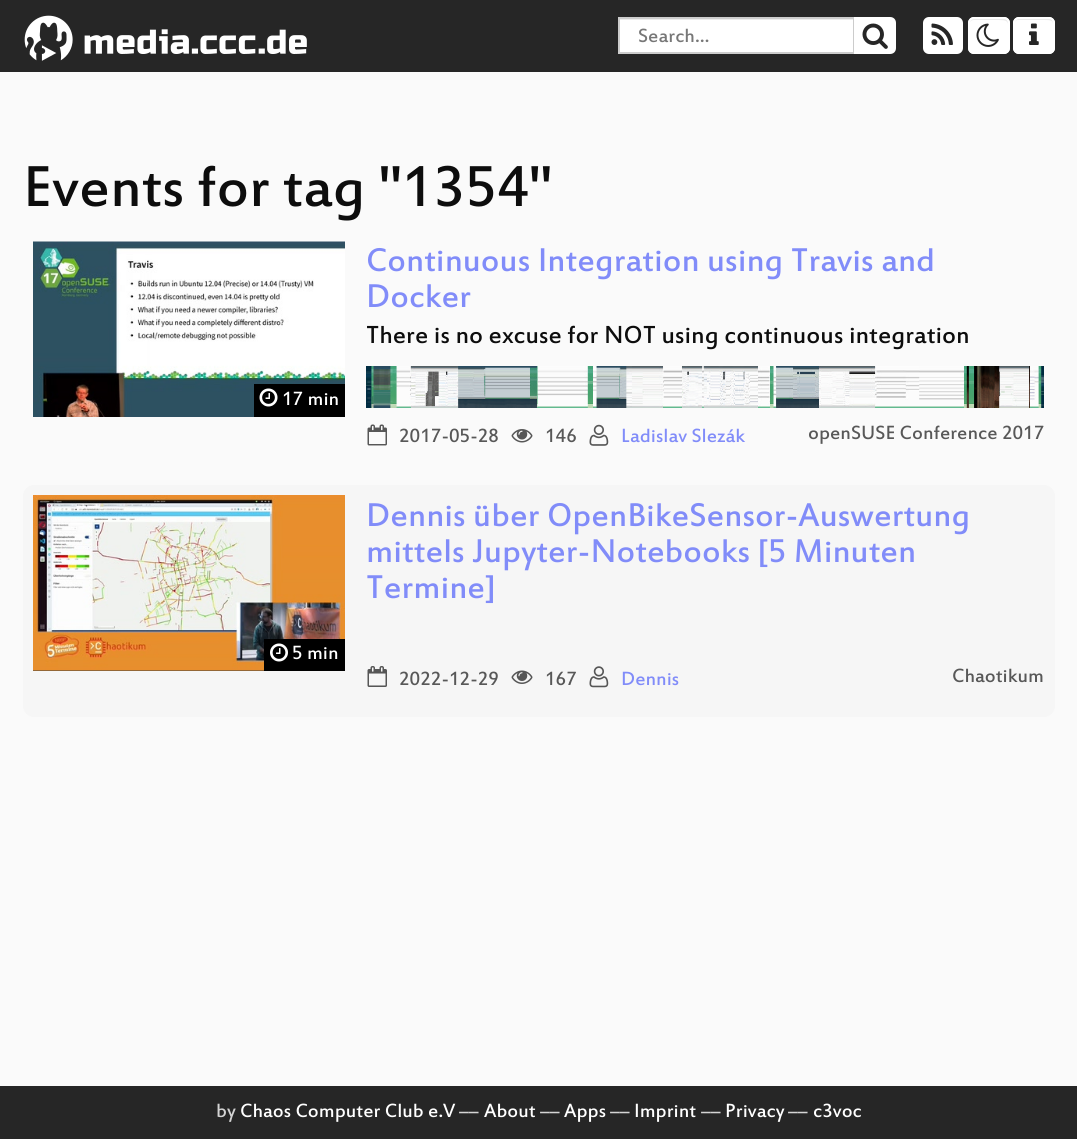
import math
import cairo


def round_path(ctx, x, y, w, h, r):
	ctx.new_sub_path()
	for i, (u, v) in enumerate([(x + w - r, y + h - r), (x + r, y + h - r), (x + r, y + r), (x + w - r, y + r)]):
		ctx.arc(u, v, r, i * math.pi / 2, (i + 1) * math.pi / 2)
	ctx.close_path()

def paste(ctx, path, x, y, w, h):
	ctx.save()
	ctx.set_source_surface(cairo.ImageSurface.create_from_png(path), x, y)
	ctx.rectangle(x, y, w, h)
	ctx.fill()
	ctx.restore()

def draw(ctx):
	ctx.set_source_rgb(0.98, 0.98, 0.98)
	ctx.paint()
	ctx.set_source_rgb(0.149, 0.149, 0.149)
	ctx.rectangle(0, 0, 1077, 72)
	ctx.fill()
	paste(ctx, 'media/1.png', 24, 15, 283, 46)
	ctx.set_source_rgb(1, 1, 1)
	ctx.rectangle(620, 20, 233, 32)
	ctx.fill()
	ctx.set_source_rgb(0.925, 0.925, 0.925)
	ctx.rectangle(620, 19, 234, 1)
	ctx.fill()
	ctx.rectangle(619, 18, 235, 35)
	ctx.set_source_rgb(0.8, 0.8, 0.8)
	ctx.stroke()
	ctx.select_font_face('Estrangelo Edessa')
	ctx.set_font_size(21)
	ctx.set_source_rgb(0.467, 0.467, 0.467)
	ctx.move_to(638, 42)
	ctx.show_text('Search…')
	ctx.set_source_rgb(1, 1, 1)
	ctx.new_path()
	ctx.move_to(855, 18)
	ctx.line_to(890, 18)
	ctx.curve_to(893, 18, 895, 20, 895, 23)
	ctx.line_to(895, 48)
	ctx.curve_to(895, 51, 893, 53, 890, 53)
	ctx.line_to(855, 53)
	ctx.close_path()
	ctx.fill_preserve()
	ctx.stroke()
	paste(ctx, 'media/2.png', 862, 23, 26, 26)
	round_path(ctx, 924, 18, 38, 35, 5)
	ctx.fill_preserve()
	ctx.stroke()
	paste(ctx, 'media/3.png', 931, 23, 22, 22)
	round_path(ctx, 968, 17, 42, 37, 6)
	ctx.fill()
	ctx.set_source_rgb(0.925, 0.925, 0.925)
	ctx.set_fill_rule(cairo.FILL_RULE_EVEN_ODD)
	ctx.new_path()
	ctx.move_to(974, 20)
	ctx.line_to(998, 20)
	ctx.curve_to(1005.5, 20, 1007.5, 21, 1008, 24)
	ctx.line_to(1008, 23)
	ctx.curve_to(1008, 20, 1006, 18, 1003, 18)
	ctx.line_to(974, 18)
	ctx.curve_to(971, 18, 969, 20, 969, 23)
	ctx.line_to(969, 28)
	ctx.curve_to(969, 25, 969, 20, 974, 20)
	ctx.close_path()
	ctx.move_to(969, 49)
	ctx.line_to(969, 45)
	ctx.close_path()
	ctx.fill()
	round_path(ctx, 969, 18, 40, 35, 5)
	ctx.set_source_rgb(1, 1, 1)
	ctx.stroke()
	paste(ctx, 'media/4.png', 976, 23, 23, 24)
	round_path(ctx, 1013, 17, 42, 37, 6)
	ctx.fill()
	ctx.set_source_rgb(0.925, 0.925, 0.925)
	ctx.new_path()
	ctx.move_to(1018, 20)
	ctx.line_to(1044, 20)
	ctx.curve_to(1050.5, 20, 1052.5, 20.5, 1053, 23.5)
	ctx.line_to(1053, 23)
	ctx.curve_to(1053, 20, 1051, 18, 1048, 18)
	ctx.line_to(1019, 18)
	ctx.curve_to(1016, 18, 1014, 20, 1014, 23)
	ctx.line_to(1014, 28)
	ctx.curve_to(1014, 25, 1014, 20, 1018, 20)
	ctx.close_path()
	ctx.move_to(1014, 49.5)
	ctx.line_to(1014, 45)
	ctx.close_path()
	ctx.fill()
	round_path(ctx, 1014, 18, 40, 35, 5)
	ctx.set_source_rgb(1, 1, 1)
	ctx.stroke()
	paste(ctx, 'media/5.png', 1029, 23, 10, 22)
	ctx.set_font_size(63)
	ctx.set_source_rgb(0.051, 0.051, 0.051)
	ctx.move_to(23, 206)
	ctx.show_text('Events for tag "1354"')
	paste(ctx, 'media/6.png', 33, 241, 312, 176)
	ctx.set_source_rgb(0, 0, 0)
	ctx.rectangle(254, 384, 91, 33)
	ctx.fill()
	paste(ctx, 'media/7.png', 259, 388, 19, 19)
	ctx.set_font_size(21)
	ctx.set_source_rgb(1, 1, 1)
	ctx.move_to(282, 405)
	ctx.show_text('17 min')
	ctx.set_font_size(36)
	ctx.set_source_rgb(0.506, 0.549, 0.973)
	ctx.move_to(366, 271)
	ctx.show_text('Continuous Integration using Travis and')
	ctx.move_to(366, 307)
	ctx.show_text('Docker')
	ctx.set_font_size(27)
	ctx.set_source_rgb(0.051, 0.051, 0.051)
	ctx.move_to(366, 343)
	ctx.show_text('There is no excuse for NOT using continuous integration')
	paste(ctx, 'media/8.png', 366, 366, 678, 42)
	paste(ctx, 'media/9.png', 367, 424, 20, 22)
	ctx.set_font_size(21)
	ctx.set_source_rgb(0.345, 0.345, 0.345)
	ctx.move_to(399, 442)
	ctx.show_text('2017-05-28')
	paste(ctx, 'media/10.png', 511, 429, 22, 14)
	ctx.move_to(545, 442)
	ctx.show_text('146')
	paste(ctx, 'media/11.png', 589, 424, 20, 22)
	ctx.set_source_rgb(0.506, 0.549, 0.973)
	ctx.move_to(621, 442)
	ctx.show_text('Ladislav Slezák')
	ctx.set_source_rgb(0.345, 0.345, 0.345)
	ctx.move_to(808, 439)
	ctx.show_text('openSUSE Conference 2017')
	ctx.set_source_rgb(0.961, 0.961, 0.961)
	round_path(ctx, 23, 485, 1032, 232, 11)
	ctx.fill()
	ctx.set_source_rgb(0.251, 0.251, 0.251)
	ctx.rectangle(33, 670, 231, 1)
	ctx.fill()
	paste(ctx, 'media/12.png', 33, 495, 312, 176)
	ctx.set_source_rgb(0, 0, 0)
	ctx.rectangle(264, 639, 81, 32)
	ctx.fill()
	paste(ctx, 'media/13.png', 270, 643, 18, 19)
	ctx.set_source_rgb(1, 1, 1)
	ctx.move_to(292, 659)
	ctx.show_text('5 min')
	ctx.set_font_size(36)
	ctx.set_source_rgb(0.506, 0.549, 0.973)
	for x, y, s in [
		(366, 526, 'Dennis über OpenBikeSensor-Auswertung'),
		(366, 562, 'mittels Jupyter-Notebooks [5 Minuten'),
		(366, 598, 'Termine]'),
	]:
		ctx.move_to(x, y)
		ctx.show_text(s)
	paste(ctx, 'media/14.png', 367, 666, 20, 21)
	ctx.set_font_size(21)
	ctx.set_source_rgb(0.345, 0.345, 0.345)
	ctx.move_to(399, 685)
	ctx.show_text('2022-12-29')
	paste(ctx, 'media/15.png', 511, 670, 22, 14)
	ctx.move_to(545, 685)
	ctx.show_text('167')
	paste(ctx, 'media/16.png', 589, 666, 20, 22)
	ctx.set_source_rgb(0.506, 0.549, 0.973)
	ctx.move_to(621, 685)
	ctx.show_text('Dennis')
	ctx.set_source_rgb(0.345, 0.345, 0.345)
	ctx.move_to(952, 682)
	ctx.show_text('Chaotikum')
	ctx.set_source_rgb(0.149, 0.149, 0.149)
	ctx.rectangle(0, 1086, 1077, 53)
	ctx.fill()
	ctx.set_source_rgb(0.831, 0.831, 0.831)
	ctx.move_to(216, 1117)
	ctx.show_text('by')
	ctx.set_source_rgb(1, 1, 1)
	ctx.move_to(240, 1117)
	ctx.show_text('Chaos Computer Club e.V')
	ctx.set_source_rgb(0.831, 0.831, 0.831)
	ctx.move_to(459, 1117)
	ctx.show_text('––')
	ctx.set_source_rgb(1, 1, 1)
	ctx.move_to(484, 1117)
	ctx.show_text('About')
	ctx.set_source_rgb(0.831, 0.831, 0.831)
	ctx.move_to(540, 1117)
	ctx.show_text('––')
	ctx.set_source_rgb(1, 1, 1)
	ctx.move_to(564, 1117)
	ctx.show_text('Apps')
	ctx.set_source_rgb(0.831, 0.831, 0.831)
	ctx.move_to(610, 1117)
	ctx.show_text('––')
	ctx.set_source_rgb(1, 1, 1)
	ctx.move_to(634, 1117)
	ctx.show_text('Imprint')
	ctx.set_source_rgb(0.831, 0.831, 0.831)
	ctx.move_to(701, 1117)
	ctx.show_text('––')
	ctx.set_source_rgb(1, 1, 1)
	ctx.move_to(725, 1117)
	ctx.show_text('Privacy')
	ctx.set_source_rgb(0.831, 0.831, 0.831)
	ctx.move_to(788, 1117)
	ctx.show_text('––')
	ctx.set_source_rgb(1, 1, 1)
	ctx.move_to(813, 1117)
	ctx.show_text('c3voc')


surface = cairo.ImageSurface(cairo.FORMAT_RGB24, 1077, 1139)
ctx = cairo.Context(surface)
options = cairo.FontOptions()
options.set_hint_metrics(cairo.HINT_METRICS_OFF)
options.set_hint_style(cairo.HINT_STYLE_NONE)
ctx.set_font_options(options)
ctx.set_miter_limit(4)
draw(ctx)
surface.write_to_png('image.png')
